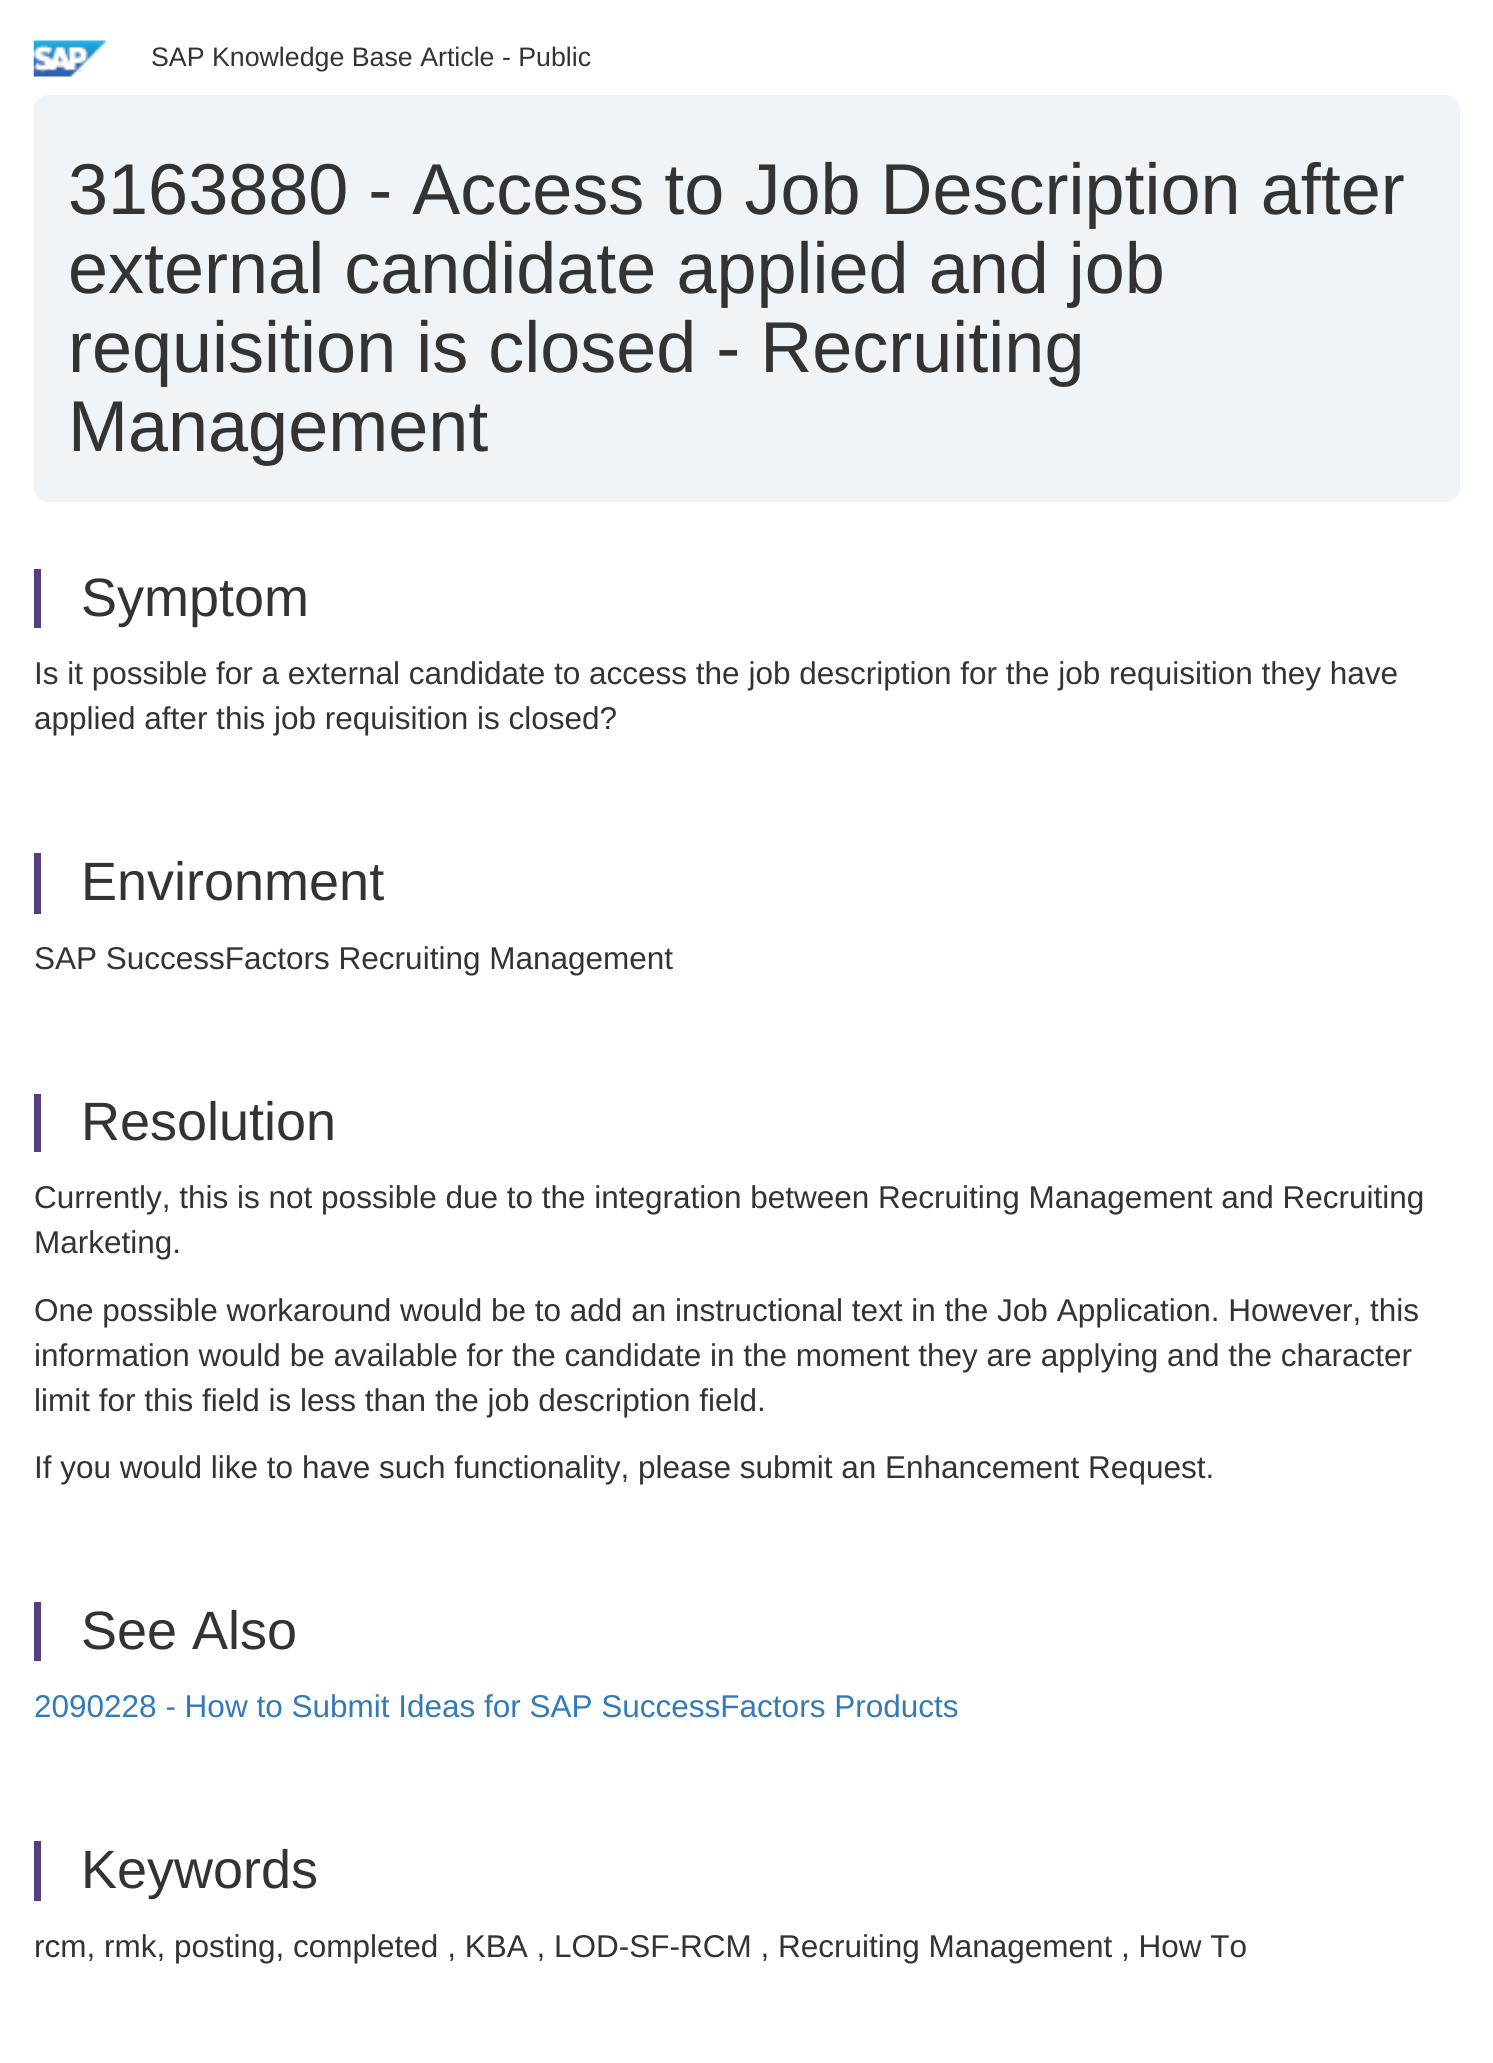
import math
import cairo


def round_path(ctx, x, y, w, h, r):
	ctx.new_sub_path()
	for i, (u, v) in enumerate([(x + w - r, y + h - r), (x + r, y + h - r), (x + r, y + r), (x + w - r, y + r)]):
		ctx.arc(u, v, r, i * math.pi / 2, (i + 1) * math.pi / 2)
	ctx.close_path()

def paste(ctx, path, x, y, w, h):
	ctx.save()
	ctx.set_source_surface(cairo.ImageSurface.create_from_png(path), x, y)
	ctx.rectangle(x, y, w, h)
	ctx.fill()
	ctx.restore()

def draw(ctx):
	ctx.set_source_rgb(1, 1, 1)
	ctx.paint()
	paste(ctx, 'media/1.png', 33, 40, 73, 38)
	ctx.select_font_face('Liberation Sans')
	ctx.set_font_size(26.75)
	ctx.set_source_rgb(0.2, 0.2, 0.2)
	ctx.move_to(151, 66)
	ctx.show_text('SAP Knowledge Base Article - Public')
	ctx.set_source_rgb(0.937, 0.957, 0.976)
	round_path(ctx, 34, 95, 1426, 407, 14)
	ctx.fill()
	ctx.set_font_size(72)
	ctx.set_source_rgb(0.2, 0.2, 0.2)
	for x, y, s in [
		(68, 214, '3163880 - Access to Job Description after'),
		(68, 293, 'external candidate applied and job'),
		(68, 372, 'requisition is closed - Recruiting'),
		(68, 451, 'Management'),
	]:
		ctx.move_to(x, y)
		ctx.show_text(s)
	ctx.set_source_rgb(0.337, 0.239, 0.486)
	ctx.rectangle(34, 569, 7, 59)
	ctx.fill()
	ctx.set_font_size(54)
	ctx.set_source_rgb(0.2, 0.2, 0.2)
	ctx.move_to(81, 616)
	ctx.show_text('Symptom')
	ctx.set_font_size(31.5)
	ctx.move_to(34, 684)
	ctx.show_text('Is it possible for a external candidate to access the job description for the job requisition they have')
	ctx.move_to(34, 729)
	ctx.show_text('applied after this job requisition is closed?')
	ctx.set_source_rgb(0.337, 0.239, 0.486)
	ctx.rectangle(34, 853, 7, 61)
	ctx.fill()
	ctx.set_font_size(54)
	ctx.set_source_rgb(0.2, 0.2, 0.2)
	ctx.move_to(81, 900)
	ctx.show_text('Environment')
	ctx.set_font_size(31.5)
	ctx.move_to(34, 969)
	ctx.show_text('SAP SuccessFactors Recruiting Management')
	ctx.set_source_rgb(0.337, 0.239, 0.486)
	ctx.rectangle(34, 1094, 7, 58)
	ctx.fill()
	ctx.set_font_size(54)
	ctx.set_source_rgb(0.2, 0.2, 0.2)
	ctx.move_to(81, 1140)
	ctx.show_text('Resolution')
	ctx.set_font_size(31.5)
	for x, y, s in [
		(34, 1208, 'Currently, this is not possible due to the integration between Recruiting Management and Recruiting'),
		(34, 1253, 'Marketing.'),
		(34, 1321, 'One possible workaround would be to add an instructional text in the Job Application. However, this'),
		(34, 1366, 'information would be available for the candidate in the moment they are applying and the character'),
		(34, 1411, 'limit for this field is less than the job description field.'),
		(34, 1478, 'If you would like to have such functionality, please submit an Enhancement Request.'),
	]:
		ctx.move_to(x, y)
		ctx.show_text(s)
	ctx.set_source_rgb(0.337, 0.239, 0.486)
	ctx.rectangle(34, 1602, 7, 59)
	ctx.fill()
	ctx.set_font_size(54)
	ctx.set_source_rgb(0.2, 0.2, 0.2)
	ctx.move_to(81, 1649)
	ctx.show_text('See Also')
	ctx.set_font_size(31.5)
	ctx.set_source_rgb(0.2, 0.478, 0.718)
	ctx.move_to(34, 1717)
	ctx.show_text('2090228 - How to Submit Ideas for SAP SuccessFactors Products')
	ctx.set_source_rgb(0.337, 0.239, 0.486)
	ctx.rectangle(34, 1841, 7, 60)
	ctx.fill()
	ctx.set_font_size(54)
	ctx.set_source_rgb(0.2, 0.2, 0.2)
	ctx.move_to(81, 1888)
	ctx.show_text('Keywords')
	ctx.set_font_size(31.5)
	ctx.move_to(34, 1957)
	ctx.show_text('rcm, rmk, posting, completed , KBA , LOD-SF-RCM , Recruiting Management , How To')


surface = cairo.ImageSurface(cairo.FORMAT_RGB24, 1493, 2063)
ctx = cairo.Context(surface)
options = cairo.FontOptions()
options.set_hint_metrics(cairo.HINT_METRICS_OFF)
options.set_hint_style(cairo.HINT_STYLE_NONE)
ctx.set_font_options(options)
ctx.set_miter_limit(4)
draw(ctx)
surface.write_to_png('image.png')
